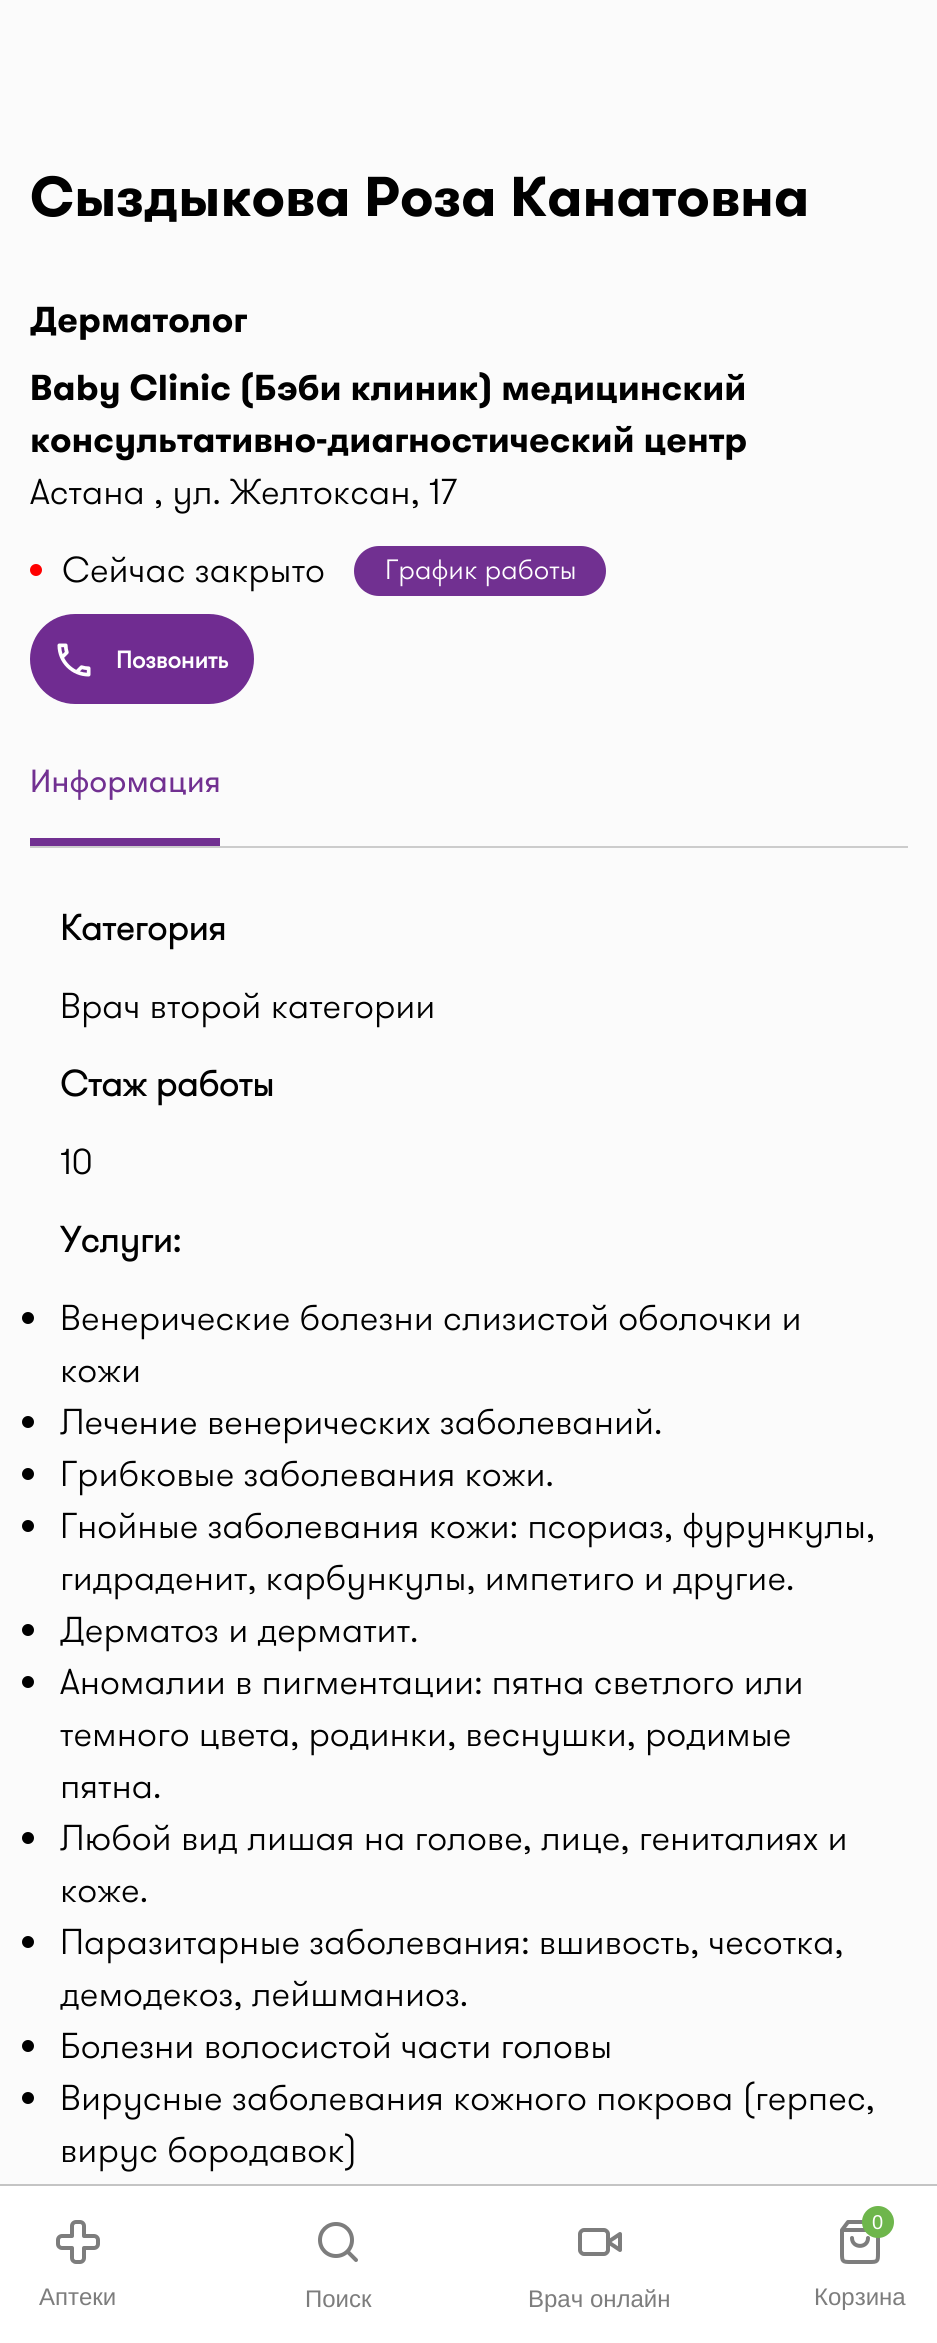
import math
import cairo


def round_path(ctx, x, y, w, h, r):
	ctx.new_sub_path()
	for i, (u, v) in enumerate([(x + w - r, y + h - r), (x + r, y + h - r), (x + r, y + r), (x + w - r, y + r)]):
		ctx.arc(u, v, r, i * math.pi / 2, (i + 1) * math.pi / 2)
	ctx.close_path()

def paste(ctx, path, x, y, w, h):
	ctx.save()
	ctx.set_source_surface(cairo.ImageSurface.create_from_png(path), x, y)
	ctx.rectangle(x, y, w, h)
	ctx.fill()
	ctx.restore()

def draw(ctx):
	ctx.set_source_rgb(0.984, 0.984, 0.984)
	ctx.paint()
	ctx.select_font_face('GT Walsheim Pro', cairo.FONT_SLANT_NORMAL, cairo.FONT_WEIGHT_BOLD)
	ctx.set_font_size(56)
	ctx.set_source_rgb(0, 0, 0)
	ctx.move_to(30, 216)
	ctx.show_text('Сыздыкова Роза Канатовна')
	ctx.set_font_size(36)
	for x, y, s in [
		(30, 332, 'Дерматолог'),
		(30, 400, 'Baby Clinic (Бэби клиник) медицинский'),
		(30, 452, 'консультативно-диагностический центр'),
	]:
		ctx.move_to(x, y)
		ctx.show_text(s)
	ctx.select_font_face('GT Walsheim Pro Light')
	ctx.move_to(30, 504)
	ctx.show_text('Астана , ул. Желтоксан, 17')
	ctx.set_source_rgb(1, 0, 0)
	ctx.new_path()
	ctx.arc(36, 570, 6, 0, 2 * math.pi)
	ctx.fill()
	ctx.set_source_rgb(0, 0, 0)
	ctx.move_to(62, 582)
	ctx.show_text('Сейчас закрыто')
	ctx.set_source_rgb(0.443, 0.188, 0.569)
	round_path(ctx, 354, 546, 252, 50, 25)
	ctx.fill()
	ctx.set_font_size(28)
	ctx.set_source_rgb(1, 1, 1)
	ctx.move_to(385, 579)
	ctx.show_text('График работы')
	ctx.set_source_rgb(0.439, 0.173, 0.569)
	round_path(ctx, 31, 615, 222, 88, 44)
	ctx.fill_preserve()
	ctx.stroke()
	paste(ctx, 'media/1.png', 57, 643, 34, 34)
	ctx.select_font_face('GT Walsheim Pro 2', cairo.FONT_SLANT_NORMAL, cairo.FONT_WEIGHT_BOLD)
	ctx.set_font_size(24)
	ctx.set_source_rgb(1, 1, 1)
	ctx.move_to(116, 668)
	ctx.show_text('Позвонить')
	ctx.set_source_rgb(0.8, 0.8, 0.8)
	ctx.rectangle(30, 846, 878, 2)
	ctx.fill()
	ctx.set_source_rgb(0.443, 0.188, 0.569)
	ctx.rectangle(30, 838, 190, 8)
	ctx.fill()
	ctx.select_font_face('GT Walsheim Pro')
	ctx.set_font_size(32)
	ctx.move_to(30, 792)
	ctx.show_text('Информация')
	ctx.select_font_face('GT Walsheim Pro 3', cairo.FONT_SLANT_NORMAL, cairo.FONT_WEIGHT_BOLD)
	ctx.set_font_size(36)
	ctx.set_source_rgb(0, 0, 0)
	ctx.move_to(60, 940)
	ctx.show_text('Категория')
	ctx.select_font_face('GT Walsheim Pro Light')
	ctx.move_to(60, 1018)
	ctx.show_text('Врач второй категории')
	ctx.select_font_face('GT Walsheim Pro 3', cairo.FONT_SLANT_NORMAL, cairo.FONT_WEIGHT_BOLD)
	ctx.move_to(60, 1096)
	ctx.show_text('Стаж работы')
	ctx.select_font_face('GT Walsheim Pro Light')
	ctx.move_to(60, 1174)
	ctx.show_text('10')
	ctx.select_font_face('GT Walsheim Pro 3', cairo.FONT_SLANT_NORMAL, cairo.FONT_WEIGHT_BOLD)
	ctx.move_to(60, 1252)
	ctx.show_text('Услуги:')
	ctx.new_path()
	ctx.arc(28, 1318, 6, 0, 2 * math.pi)
	ctx.fill()
	ctx.select_font_face('GT Walsheim Pro Light')
	ctx.move_to(60, 1330)
	ctx.show_text('Венерические болезни слизистой оболочки и')
	ctx.move_to(60, 1382)
	ctx.show_text('кожи')
	ctx.new_path()
	ctx.arc(28, 1422, 6, 0, 2 * math.pi)
	ctx.fill()
	ctx.move_to(60, 1434)
	ctx.show_text('Лечение венерических заболеваний.')
	ctx.new_path()
	ctx.arc(28, 1474, 6, 0, 2 * math.pi)
	ctx.fill()
	ctx.move_to(60, 1486)
	ctx.show_text('Грибковые заболевания кожи.')
	ctx.new_path()
	ctx.arc(28, 1526, 6, 0, 2 * math.pi)
	ctx.fill()
	ctx.move_to(60, 1538)
	ctx.show_text('Гнойные заболевания кожи: псориаз, фурункулы,')
	ctx.move_to(60, 1590)
	ctx.show_text('гидраденит, карбункулы, импетиго и другие.')
	ctx.new_path()
	ctx.arc(28, 1630, 6, 0, 2 * math.pi)
	ctx.fill()
	ctx.move_to(60, 1642)
	ctx.show_text('Дерматоз и дерматит.')
	ctx.new_path()
	ctx.arc(28, 1682, 6, 0, 2 * math.pi)
	ctx.fill()
	for x, y, s in [
		(60, 1694, 'Аномалии в пигментации: пятна светлого или'),
		(60, 1746, 'темного цвета, родинки, веснушки, родимые'),
		(60, 1798, 'пятна.'),
	]:
		ctx.move_to(x, y)
		ctx.show_text(s)
	ctx.new_path()
	ctx.arc(28, 1838, 6, 0, 2 * math.pi)
	ctx.fill()
	ctx.move_to(60, 1850)
	ctx.show_text('Любой вид лишая на голове, лице, гениталиях и')
	ctx.move_to(60, 1902)
	ctx.show_text('коже.')
	ctx.new_path()
	ctx.arc(28, 1942, 6, 0, 2 * math.pi)
	ctx.fill()
	ctx.move_to(60, 1954)
	ctx.show_text('Паразитарные заболевания: вшивость, чесотка,')
	ctx.move_to(60, 2006)
	ctx.show_text('демодекоз, лейшманиоз.')
	ctx.new_path()
	ctx.arc(28, 2046, 6, 0, 2 * math.pi)
	ctx.fill()
	ctx.move_to(60, 2058)
	ctx.show_text('Болезни волосистой части головы')
	ctx.new_path()
	ctx.arc(28, 2098, 6, 0, 2 * math.pi)
	ctx.fill()
	ctx.move_to(60, 2110)
	ctx.show_text('Вирусные заболевания кожного покрова (герпес,')
	ctx.move_to(60, 2162)
	ctx.show_text('вирус бородавок)')
	ctx.set_source_rgb(1, 1, 1)
	ctx.rectangle(0, 2186, 937, 157)
	ctx.fill()
	ctx.set_source_rgb(0.769, 0.769, 0.769)
	ctx.rectangle(0, 2184, 937, 2)
	ctx.fill()
	paste(ctx, 'media/2.png', 56, 2220, 44, 44)
	ctx.select_font_face('Liberation Sans')
	ctx.set_font_size(24)
	ctx.set_source_rgb(0.49, 0.49, 0.49)
	ctx.move_to(39, 2305)
	ctx.show_text('Аптеки')
	ctx.new_path()
	ctx.move_to(336, 2256)
	ctx.curve_to(345, 2256, 352, 2249, 352, 2240)
	ctx.curve_to(352, 2231, 345, 2224, 336, 2224)
	ctx.curve_to(327, 2224, 320, 2231, 320, 2240)
	ctx.curve_to(320, 2249, 327, 2256, 336, 2256)
	ctx.close_path()
	ctx.move_to(356, 2260)
	ctx.line_to(347.5, 2251.5)
	ctx.set_line_width(4)
	ctx.set_line_cap(cairo.LINE_CAP_ROUND)
	ctx.set_line_join(cairo.LINE_JOIN_ROUND)
	ctx.stroke()
	ctx.move_to(305, 2307)
	ctx.show_text('Поиск')
	ctx.new_path()
	ctx.move_to(620, 2234)
	ctx.line_to(608, 2242)
	ctx.line_to(620, 2250)
	ctx.close_path()
	ctx.move_to(604, 2230)
	ctx.line_to(584, 2230)
	ctx.curve_to(582, 2230, 580, 2232, 580, 2234)
	ctx.line_to(580, 2250)
	ctx.curve_to(580, 2252, 582, 2254, 584, 2254)
	ctx.line_to(604, 2254)
	ctx.curve_to(606, 2254, 608, 2252, 608, 2250)
	ctx.line_to(608, 2234)
	ctx.curve_to(608, 2232, 606, 2230, 604, 2230)
	ctx.close_path()
	ctx.stroke()
	ctx.move_to(528, 2307)
	ctx.show_text('Врач онлайн')
	ctx.new_path()
	ctx.move_to(848, 2222)
	ctx.line_to(842, 2230)
	ctx.line_to(842, 2253.5)
	ctx.curve_to(842, 2261.5, 842.5, 2262, 850.5, 2262)
	ctx.line_to(869.5, 2262)
	ctx.curve_to(877.5, 2262, 878, 2261.5, 878, 2253.5)
	ctx.line_to(878, 2230)
	ctx.line_to(872, 2222)
	ctx.close_path()
	ctx.move_to(842, 2230)
	ctx.line_to(878, 2230)
	ctx.move_to(868, 2238)
	ctx.curve_to(868, 2248.5, 852, 2248.5, 852, 2238)
	ctx.stroke()
	ctx.set_source_rgb(0.431, 0.714, 0.298)
	ctx.arc(878, 2222, 16, 0, 2 * math.pi)
	ctx.fill()
	ctx.set_font_size(20)
	ctx.set_source_rgb(1, 1, 1)
	ctx.move_to(872, 2229)
	ctx.show_text('0')
	ctx.set_font_size(24)
	ctx.set_source_rgb(0.49, 0.49, 0.49)
	ctx.move_to(814, 2305)
	ctx.show_text('Корзина')


surface = cairo.ImageSurface(cairo.FORMAT_RGB24, 937, 2343)
ctx = cairo.Context(surface)
options = cairo.FontOptions()
options.set_hint_metrics(cairo.HINT_METRICS_OFF)
options.set_hint_style(cairo.HINT_STYLE_NONE)
ctx.set_font_options(options)
ctx.set_miter_limit(4)
draw(ctx)
surface.write_to_png('image.png')
